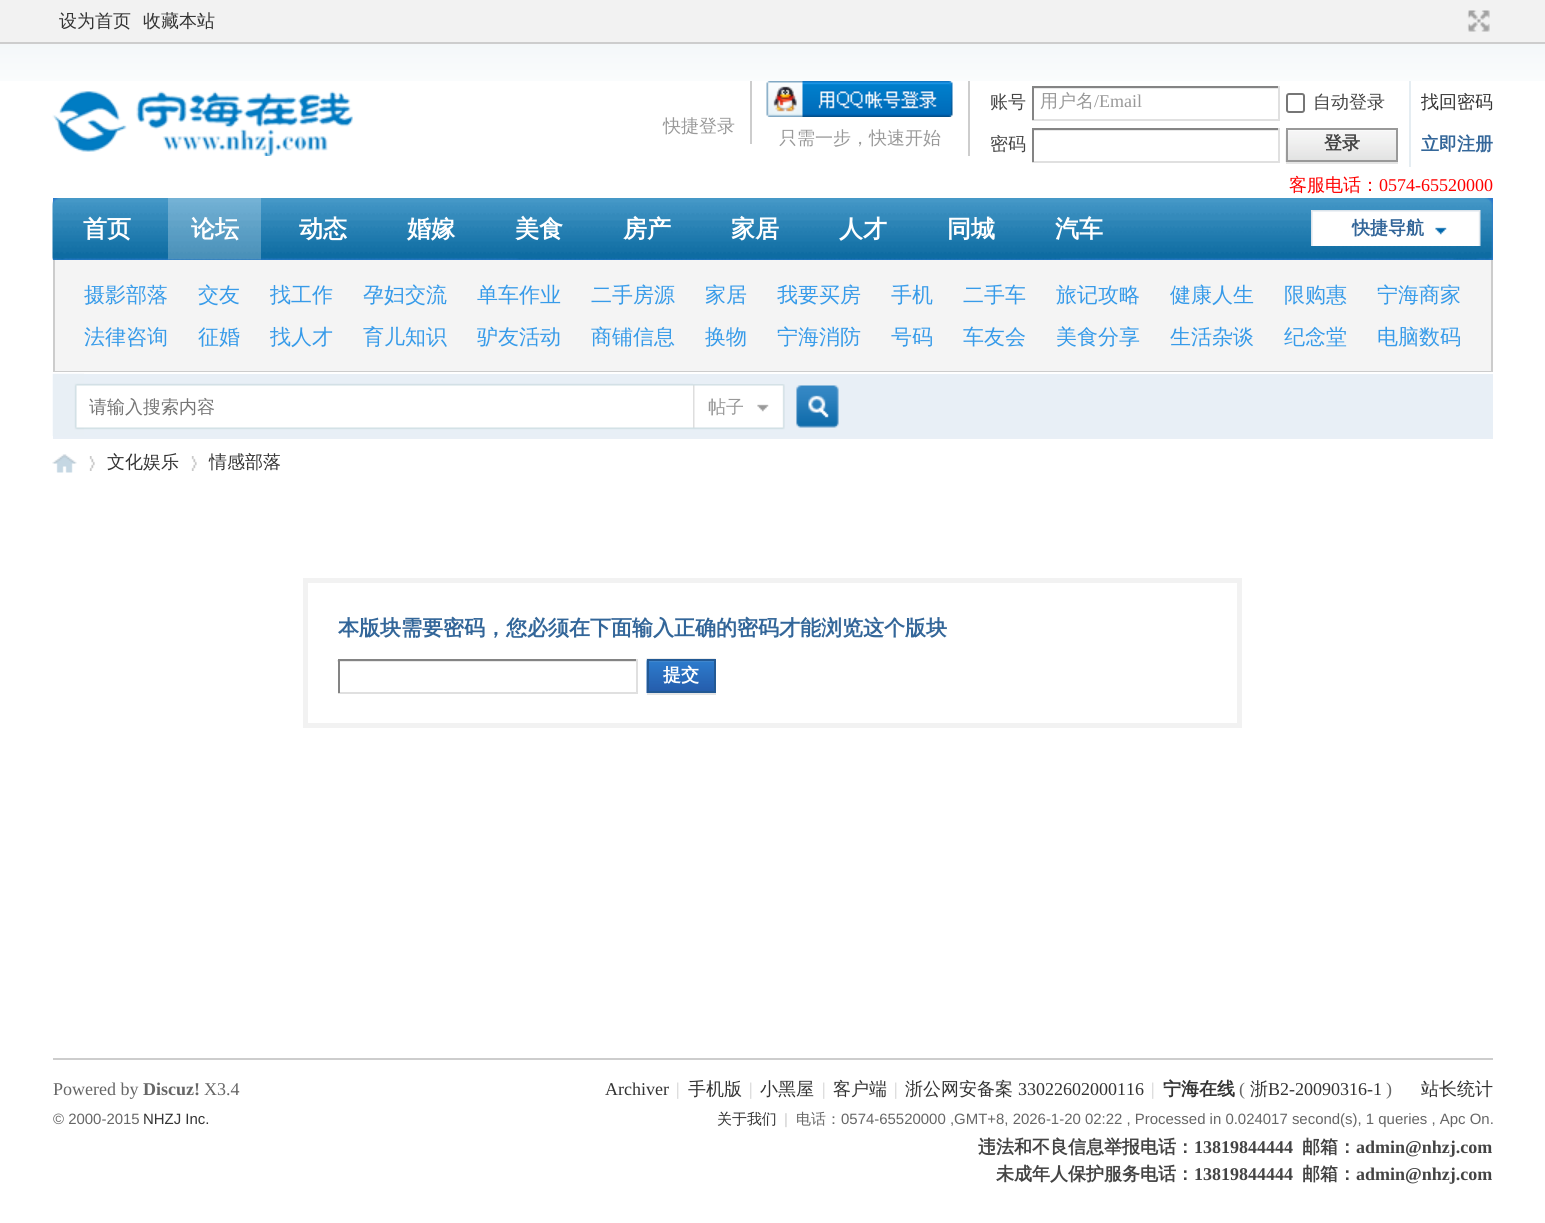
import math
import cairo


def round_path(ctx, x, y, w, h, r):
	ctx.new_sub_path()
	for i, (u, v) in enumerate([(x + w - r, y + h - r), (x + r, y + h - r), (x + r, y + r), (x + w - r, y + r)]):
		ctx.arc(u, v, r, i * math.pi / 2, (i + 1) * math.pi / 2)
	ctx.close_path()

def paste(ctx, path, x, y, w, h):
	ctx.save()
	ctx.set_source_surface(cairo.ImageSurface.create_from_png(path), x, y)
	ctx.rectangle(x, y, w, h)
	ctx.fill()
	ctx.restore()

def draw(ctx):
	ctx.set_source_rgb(1, 1, 1)
	ctx.paint()
	paste(ctx, 'media/1.png', 0, 44, 1545, 37)
	ctx.set_source_rgb(0.949, 0.949, 0.949)
	ctx.rectangle(0, 0, 1545, 42)
	ctx.fill()
	ctx.set_source_rgb(0.804, 0.804, 0.804)
	ctx.rectangle(0, 42, 1545, 2)
	ctx.fill()
	ctx.select_font_face('WenQuanYi Zen Hei Medium')
	ctx.set_font_size(18)
	ctx.set_source_rgb(0.2, 0.2, 0.2)
	ctx.move_to(59, 27)
	ctx.show_text('设为首页')
	ctx.move_to(143, 27)
	ctx.show_text('收藏本站')
	paste(ctx, 'media/2.png', 1467, 10, 23, 22)
	paste(ctx, 'media/3.png', 52, 91, 301, 65)
	ctx.set_source_rgb(0.804, 0.804, 0.804)
	ctx.rectangle(750, 81, 2, 63)
	ctx.fill()
	ctx.set_source_rgb(0.6, 0.6, 0.6)
	ctx.move_to(663, 132)
	ctx.show_text('快捷登录')
	ctx.set_source_rgb(0.267, 0.267, 0.267)
	ctx.move_to(990, 108)
	ctx.show_text('账号')
	paste(ctx, 'media/4.png', 1034, 88, 244, 1)
	ctx.set_source_rgb(0.518, 0.518, 0.518)
	ctx.rectangle(1032, 86, 248, 2)
	ctx.fill()
	ctx.set_source_rgb(0.878, 0.878, 0.878)
	ctx.rectangle(1278, 86, 2, 34)
	ctx.rectangle(1032, 119, 248, 2)
	ctx.fill()
	ctx.set_source_rgb(0.518, 0.518, 0.518)
	ctx.rectangle(1032, 86, 2, 34)
	ctx.fill()
	ctx.set_source_rgb(0.6, 0.6, 0.6)
	ctx.move_to(1040, 107)
	ctx.show_text('用户名')
	ctx.select_font_face('Liberation Serif')
	ctx.move_to(1094, 107)
	ctx.show_text('/Email')
	round_path(ctx, 1287, 94, 17, 18, 2)
	ctx.set_source_rgb(0.463, 0.463, 0.463)
	ctx.stroke()
	ctx.select_font_face('WenQuanYi Zen Hei Medium')
	ctx.set_source_rgb(0.267, 0.267, 0.267)
	ctx.move_to(1313, 108)
	ctx.show_text('自动登录')
	ctx.set_source_rgb(0.2, 0.2, 0.2)
	ctx.move_to(1421, 108)
	ctx.show_text('找回密码')
	ctx.set_source_rgb(0.267, 0.267, 0.267)
	ctx.move_to(990, 150)
	ctx.show_text('密码')
	paste(ctx, 'media/4.png', 1034, 130, 244, 1)
	ctx.set_source_rgb(0.518, 0.518, 0.518)
	ctx.rectangle(1032, 128, 248, 2)
	ctx.fill()
	ctx.set_source_rgb(0.878, 0.878, 0.878)
	ctx.rectangle(1278, 128, 2, 34)
	ctx.rectangle(1032, 161, 248, 2)
	ctx.fill()
	ctx.set_source_rgb(0.518, 0.518, 0.518)
	ctx.rectangle(1032, 128, 2, 34)
	ctx.fill()
	ctx.set_source_rgb(0.898, 0.929, 0.949)
	ctx.rectangle(1409, 81, 2, 86)
	ctx.fill()
	ctx.set_source_rgb(0.898, 0.898, 0.898)
	ctx.rectangle(1286, 162, 112, 2)
	ctx.fill()
	paste(ctx, 'media/5.png', 1285, 129, 111, 33)
	ctx.rectangle(1287, 129, 110, 32)
	ctx.set_source_rgb(0.6, 0.6, 0.6)
	ctx.stroke()
	ctx.select_font_face('WenQuanYi Zen Hei', cairo.FONT_SLANT_NORMAL, cairo.FONT_WEIGHT_BOLD)
	ctx.set_source_rgb(0.267, 0.267, 0.267)
	ctx.move_to(1324, 149)
	ctx.show_text('登录')
	ctx.set_source_rgb(0.2, 0.4, 0.6)
	ctx.move_to(1421, 150)
	ctx.show_text('立即注册')
	ctx.set_source_rgb(0.804, 0.804, 0.804)
	ctx.rectangle(968, 81, 2, 75)
	ctx.fill()
	paste(ctx, 'media/6.png', 766, 81, 187, 36)
	ctx.select_font_face('WenQuanYi Zen Hei Medium')
	ctx.set_source_rgb(0.6, 0.6, 0.6)
	ctx.move_to(779, 144)
	ctx.show_text('只需一步，快速开始')
	ctx.set_source_rgb(1, 0, 0)
	ctx.move_to(1289, 191)
	ctx.show_text('客服电话：')
	ctx.select_font_face('Liberation Serif')
	ctx.move_to(1379, 191)
	ctx.show_text('0574-65520000')
	ctx.set_source_rgb(0.169, 0.478, 0.804)
	ctx.rectangle(53, 198, 1440, 62)
	ctx.fill()
	paste(ctx, 'media/7.png', 52, 198, 1441, 62)
	ctx.select_font_face('WenQuanYi Zen Hei', cairo.FONT_SLANT_NORMAL, cairo.FONT_WEIGHT_BOLD)
	ctx.set_font_size(24)
	ctx.set_source_rgb(1, 1, 1)
	ctx.move_to(83, 237)
	ctx.show_text('首页')
	paste(ctx, 'media/8.png', 168, 198, 93, 62)
	for x, y, s in [
		(191, 237, '论坛'),
		(299, 237, '动态'),
		(407, 237, '婚嫁'),
		(515, 237, '美食'),
		(623, 237, '房产'),
		(731, 237, '家居'),
		(839, 237, '人才'),
		(947, 237, '同城'),
		(1055, 237, '汽车'),
	]:
		ctx.move_to(x, y)
		ctx.show_text(s)
	paste(ctx, 'media/9.png', 1311, 210, 170, 36)
	ctx.set_font_size(18)
	ctx.set_source_rgb(0.2, 0.4, 0.6)
	ctx.move_to(1352, 234)
	ctx.show_text('快捷导航')
	ctx.set_source_rgb(0.957, 0.957, 0.957)
	ctx.rectangle(55, 260, 1436, 111)
	ctx.fill()
	ctx.set_source_rgb(0.8, 0.8, 0.8)
	ctx.rectangle(1491, 260, 2, 112)
	ctx.rectangle(53, 371, 1440, 1)
	ctx.rectangle(53, 260, 2, 112)
	ctx.fill()
	ctx.select_font_face('WenQuanYi Zen Hei Medium')
	ctx.set_font_size(21)
	ctx.set_source_rgb(0.216, 0.608, 0.914)
	for x, y, s in [
		(84, 302, '摄影部落'),
		(198, 302, '交友'),
		(270, 302, '找工作'),
		(363, 302, '孕妇交流'),
		(477, 302, '单车作业'),
		(591, 302, '二手房源'),
		(705, 302, '家居'),
		(777, 302, '我要买房'),
		(891, 302, '手机'),
		(963, 302, '二手车'),
		(1056, 302, '旅记攻略'),
		(1170, 302, '健康人生'),
		(1284, 302, '限购惠'),
		(1377, 302, '宁海商家'),
		(84, 344, '法律咨询'),
		(198, 344, '征婚'),
		(270, 344, '找人才'),
		(363, 344, '育儿知识'),
		(477, 344, '驴友活动'),
		(591, 344, '商铺信息'),
		(705, 344, '换物'),
		(777, 344, '宁海消防'),
		(891, 344, '号码'),
		(963, 344, '车友会'),
		(1056, 344, '美食分享'),
		(1170, 344, '生活杂谈'),
		(1284, 344, '纪念堂'),
		(1377, 344, '电脑数码'),
	]:
		ctx.move_to(x, y)
		ctx.show_text(s)
	ctx.set_source_rgb(0.91, 0.937, 0.961)
	ctx.rectangle(53, 374, 1440, 63)
	ctx.fill()
	ctx.set_source_rgb(0.914, 0.937, 0.961)
	ctx.rectangle(53, 437, 1440, 2)
	ctx.fill()
	paste(ctx, 'media/10.png', 52, 373, 32, 63)
	paste(ctx, 'media/11.png', 84, 383, 609, 47)
	ctx.set_font_size(18)
	ctx.set_source_rgb(0.459, 0.459, 0.459)
	ctx.move_to(89, 413)
	ctx.show_text('请输入搜索内容')
	paste(ctx, 'media/12.png', 693, 384, 92, 46)
	ctx.set_source_rgb(0.6, 0.6, 0.6)
	ctx.move_to(708, 413)
	ctx.show_text('帖子')
	paste(ctx, 'media/13.png', 796, 385, 43, 43)
	paste(ctx, 'media/14.png', 52, 454, 25, 19)
	paste(ctx, 'media/15.png', 89, 456, 6, 15)
	ctx.set_source_rgb(0.2, 0.2, 0.2)
	ctx.move_to(107, 468)
	ctx.show_text('文化娱乐')
	paste(ctx, 'media/15.png', 191, 456, 6, 15)
	ctx.move_to(209, 468)
	ctx.show_text('情感部落')
	ctx.rectangle(305.5, 580.5, 934, 145)
	ctx.set_source_rgb(0.949, 0.949, 0.949)
	ctx.set_line_width(5)
	ctx.stroke()
	ctx.select_font_face('WenQuanYi Zen Hei', cairo.FONT_SLANT_NORMAL, cairo.FONT_WEIGHT_BOLD)
	ctx.set_font_size(21)
	ctx.set_source_rgb(0.2, 0.4, 0.6)
	ctx.move_to(338, 635)
	ctx.show_text('本版块需要密码，您必须在下面输入正确的密码才能浏览这个版块')
	paste(ctx, 'media/16.png', 337, 660, 299, 2)
	ctx.set_source_rgb(0.518, 0.518, 0.518)
	ctx.rectangle(338, 659, 300, 2)
	ctx.fill()
	ctx.set_source_rgb(0.878, 0.878, 0.878)
	ctx.rectangle(636, 659, 2, 34)
	ctx.rectangle(338, 692, 300, 2)
	ctx.fill()
	ctx.set_source_rgb(0.518, 0.518, 0.518)
	ctx.rectangle(338, 659, 2, 34)
	ctx.fill()
	ctx.set_source_rgb(0.898, 0.898, 0.898)
	ctx.new_path()
	ctx.move_to(647, 693)
	ctx.line_to(647, 695)
	ctx.line_to(716, 695)
	ctx.line_to(716, 660)
	ctx.line_to(716, 693)
	ctx.close_path()
	ctx.fill()
	paste(ctx, 'media/17.png', 646, 658, 70, 35)
	ctx.rectangle(648, 660, 67, 32)
	ctx.set_source_rgb(0.137, 0.349, 0.58)
	ctx.set_line_width(2)
	ctx.stroke()
	ctx.set_font_size(18)
	ctx.set_source_rgb(1, 1, 1)
	ctx.move_to(663, 681)
	ctx.show_text('提交')
	ctx.set_source_rgb(0.804, 0.804, 0.804)
	ctx.rectangle(53, 1058, 1440, 2)
	ctx.fill()
	ctx.select_font_face('Liberation Serif')
	ctx.set_source_rgb(0.4, 0.4, 0.4)
	ctx.move_to(53, 1095)
	ctx.show_text('Powered by')
	ctx.select_font_face('Liberation Serif', cairo.FONT_SLANT_NORMAL, cairo.FONT_WEIGHT_BOLD)
	ctx.move_to(143, 1095)
	ctx.show_text('Discuz!')
	ctx.select_font_face('Liberation Serif')
	ctx.move_to(204, 1095)
	ctx.show_text('X3.4')
	ctx.select_font_face('Liberation Sans')
	ctx.set_font_size(14.95)
	ctx.move_to(53, 1124)
	ctx.show_text('© 2000-2015')
	ctx.set_source_rgb(0.2, 0.2, 0.2)
	ctx.move_to(143, 1124)
	ctx.show_text('NHZJ Inc.')
	ctx.select_font_face('Liberation Serif')
	ctx.set_font_size(18)
	ctx.move_to(605, 1095)
	ctx.show_text('Archiver')
	ctx.set_source_rgb(0.8, 0.8, 0.8)
	ctx.move_to(676, 1095)
	ctx.show_text('|')
	ctx.select_font_face('WenQuanYi Zen Hei Medium')
	ctx.set_source_rgb(0.2, 0.2, 0.2)
	ctx.move_to(688, 1095)
	ctx.show_text('手机版')
	ctx.select_font_face('Liberation Serif')
	ctx.set_source_rgb(0.8, 0.8, 0.8)
	ctx.move_to(749, 1095)
	ctx.show_text('|')
	ctx.select_font_face('WenQuanYi Zen Hei Medium')
	ctx.set_source_rgb(0.2, 0.2, 0.2)
	ctx.move_to(760, 1095)
	ctx.show_text('小黑屋')
	ctx.select_font_face('Liberation Serif')
	ctx.set_source_rgb(0.8, 0.8, 0.8)
	ctx.move_to(822, 1095)
	ctx.show_text('|')
	ctx.select_font_face('WenQuanYi Zen Hei Medium')
	ctx.set_source_rgb(0.2, 0.2, 0.2)
	ctx.move_to(833, 1095)
	ctx.show_text('客户端')
	ctx.select_font_face('Liberation Serif')
	ctx.set_source_rgb(0.8, 0.8, 0.8)
	ctx.move_to(894, 1095)
	ctx.show_text('|')
	ctx.select_font_face('WenQuanYi Zen Hei Medium')
	ctx.set_source_rgb(0.2, 0.2, 0.2)
	ctx.move_to(905, 1095)
	ctx.show_text('浙公网安备案')
	ctx.select_font_face('Liberation Serif')
	ctx.move_to(1018, 1095)
	ctx.show_text('33022602000116')
	ctx.set_source_rgb(0.8, 0.8, 0.8)
	ctx.move_to(1151, 1095)
	ctx.show_text('|')
	ctx.select_font_face('WenQuanYi Zen Hei', cairo.FONT_SLANT_NORMAL, cairo.FONT_WEIGHT_BOLD)
	ctx.set_source_rgb(0.2, 0.2, 0.2)
	ctx.move_to(1163, 1095)
	ctx.show_text('宁海在线')
	ctx.select_font_face('Liberation Serif')
	ctx.set_source_rgb(0.4, 0.4, 0.4)
	ctx.move_to(1239, 1095)
	ctx.show_text('(')
	ctx.select_font_face('WenQuanYi Zen Hei Medium')
	ctx.set_source_rgb(0.2, 0.2, 0.2)
	ctx.move_to(1250, 1095)
	ctx.show_text('浙')
	ctx.select_font_face('Liberation Serif')
	ctx.move_to(1268, 1095)
	ctx.show_text('B2-20090316-1')
	ctx.set_source_rgb(0.4, 0.4, 0.4)
	ctx.move_to(1386, 1095)
	ctx.show_text(')')
	ctx.select_font_face('WenQuanYi Zen Hei Medium')
	ctx.set_source_rgb(0.2, 0.2, 0.2)
	ctx.move_to(1421, 1095)
	ctx.show_text('站长统计')
	ctx.set_font_size(14.95)
	ctx.move_to(717, 1124)
	ctx.show_text('关于我们')
	ctx.select_font_face('Liberation Sans')
	ctx.set_source_rgb(0.8, 0.8, 0.8)
	ctx.move_to(784, 1124)
	ctx.show_text('|')
	ctx.select_font_face('WenQuanYi Zen Hei Medium')
	ctx.set_source_rgb(0.4, 0.4, 0.4)
	ctx.move_to(796, 1124)
	ctx.show_text('电话：')
	ctx.select_font_face('Liberation Sans')
	ctx.move_to(841, 1124)
	ctx.show_text('0574-65520000 ,GMT+8, 2026-1-20 02:22 , Processed in 0.024017 second(s), 1 queries , Apc On.')
	ctx.select_font_face('WenQuanYi Zen Hei', cairo.FONT_SLANT_NORMAL, cairo.FONT_WEIGHT_BOLD)
	ctx.set_font_size(18)
	ctx.set_source_rgb(0.267, 0.267, 0.267)
	ctx.move_to(978, 1153)
	ctx.show_text('违法和不良信息举报电话：')
	ctx.select_font_face('Liberation Serif', cairo.FONT_SLANT_NORMAL, cairo.FONT_WEIGHT_BOLD)
	ctx.move_to(1194, 1153)
	ctx.show_text('13819844444')
	ctx.select_font_face('WenQuanYi Zen Hei', cairo.FONT_SLANT_NORMAL, cairo.FONT_WEIGHT_BOLD)
	ctx.move_to(1302, 1153)
	ctx.show_text('邮箱：')
	ctx.select_font_face('Liberation Serif', cairo.FONT_SLANT_NORMAL, cairo.FONT_WEIGHT_BOLD)
	ctx.move_to(1356, 1153)
	ctx.show_text('admin@nhzj.com')
	ctx.select_font_face('WenQuanYi Zen Hei', cairo.FONT_SLANT_NORMAL, cairo.FONT_WEIGHT_BOLD)
	ctx.move_to(996, 1180)
	ctx.show_text('未成年人保护服务电话：')
	ctx.select_font_face('Liberation Serif', cairo.FONT_SLANT_NORMAL, cairo.FONT_WEIGHT_BOLD)
	ctx.move_to(1194, 1180)
	ctx.show_text('13819844444')
	ctx.select_font_face('WenQuanYi Zen Hei', cairo.FONT_SLANT_NORMAL, cairo.FONT_WEIGHT_BOLD)
	ctx.move_to(1302, 1180)
	ctx.show_text('邮箱：')
	ctx.select_font_face('Liberation Serif', cairo.FONT_SLANT_NORMAL, cairo.FONT_WEIGHT_BOLD)
	ctx.move_to(1356, 1180)
	ctx.show_text('admin@nhzj.com')


surface = cairo.ImageSurface(cairo.FORMAT_RGB24, 1545, 1223)
ctx = cairo.Context(surface)
options = cairo.FontOptions()
options.set_hint_metrics(cairo.HINT_METRICS_OFF)
options.set_hint_style(cairo.HINT_STYLE_NONE)
ctx.set_font_options(options)
ctx.set_miter_limit(4)
draw(ctx)
surface.write_to_png('image.png')
